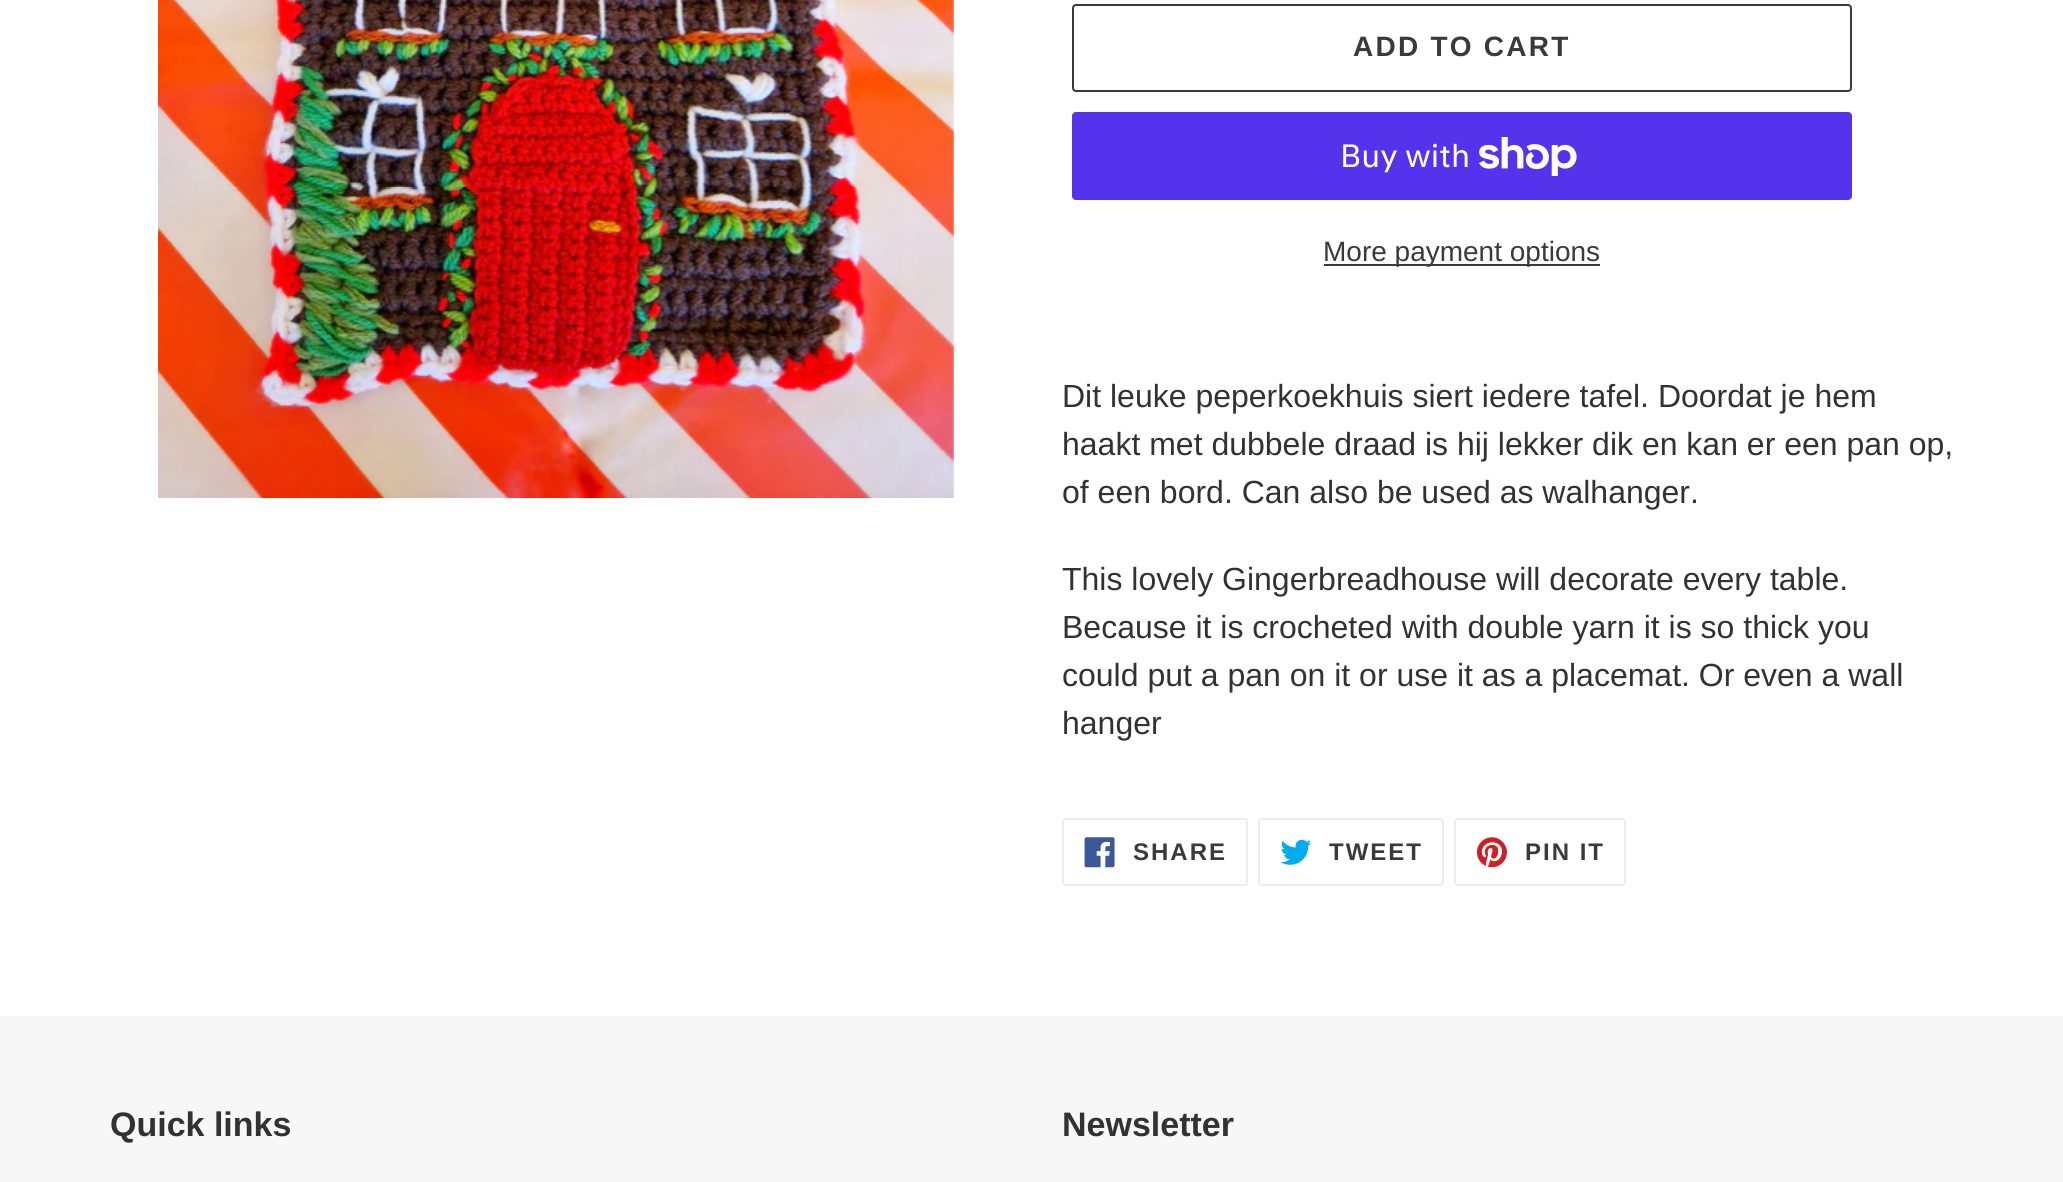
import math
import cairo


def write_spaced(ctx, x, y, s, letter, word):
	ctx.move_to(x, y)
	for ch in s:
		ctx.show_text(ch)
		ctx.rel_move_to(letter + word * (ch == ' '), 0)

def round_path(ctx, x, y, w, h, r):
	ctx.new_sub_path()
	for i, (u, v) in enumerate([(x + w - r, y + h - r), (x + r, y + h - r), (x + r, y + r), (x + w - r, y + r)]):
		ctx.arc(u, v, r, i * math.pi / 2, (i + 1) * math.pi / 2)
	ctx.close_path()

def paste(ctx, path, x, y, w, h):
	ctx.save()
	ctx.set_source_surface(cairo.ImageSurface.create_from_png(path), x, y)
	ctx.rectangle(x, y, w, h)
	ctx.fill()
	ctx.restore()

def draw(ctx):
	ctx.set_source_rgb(1, 1, 1)
	ctx.paint()
	paste(ctx, 'media/1.png', 158, 0, 796, 498)
	round_path(ctx, 1073, 5, 778, 86, 3)
	ctx.set_source_rgb(0.227, 0.227, 0.227)
	ctx.stroke()
	ctx.select_font_face('Liberation Sans', cairo.FONT_SLANT_NORMAL, cairo.FONT_WEIGHT_BOLD)
	ctx.set_font_size(28)
	write_spaced(ctx, 1353, 56, 'ADD TO CART', 2.25, 0)
	ctx.set_source_rgb(0.329, 0.2, 0.922)
	round_path(ctx, 1072, 112, 780, 88, 4)
	ctx.fill()
	ctx.select_font_face('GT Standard')
	ctx.set_font_size(32)
	ctx.set_source_rgb(1, 1, 1)
	ctx.move_to(1340, 167)
	ctx.show_text('Buy with')
	paste(ctx, 'media/2.png', 1479, 137, 98, 39)
	ctx.set_source_rgb(0.227, 0.227, 0.227)
	ctx.rectangle(1324, 264, 276, 2)
	ctx.fill()
	ctx.select_font_face('Liberation Sans')
	ctx.set_font_size(28)
	ctx.move_to(1323, 261)
	ctx.show_text('More payment options')
	ctx.set_font_size(32)
	ctx.set_source_rgb(0.2, 0.196, 0.196)
	for x, y, s in [
		(1062, 407, 'Dit leuke peperkoekhuis siert iedere tafel. Doordat je hem'),
		(1062, 455, 'haakt met dubbele draad is hij lekker dik en kan er een pan op,'),
		(1062, 503, 'of een bord. Can also be used as walhanger.'),
		(1062, 590, 'This lovely Gingerbreadhouse will decorate every table.'),
		(1062, 638, 'Because it is crocheted with double yarn it is so thick you'),
		(1062, 686, 'could put a pan on it or use it as a placemat. Or even a wall'),
		(1062, 734, 'hanger'),
	]:
		ctx.move_to(x, y)
		ctx.show_text(s)
	round_path(ctx, 1063, 819, 184, 66, 3)
	ctx.set_source_rgb(0.922, 0.922, 0.922)
	ctx.stroke()
	paste(ctx, 'media/3.png', 1084, 837, 31, 31)
	ctx.select_font_face('Liberation Sans', cairo.FONT_SLANT_NORMAL, cairo.FONT_WEIGHT_BOLD)
	ctx.set_font_size(24)
	ctx.set_source_rgb(0.227, 0.227, 0.227)
	write_spaced(ctx, 1133, 860, 'SHARE', 2, 0)
	round_path(ctx, 1259, 819, 184, 66, 3)
	ctx.set_source_rgb(0.922, 0.922, 0.922)
	ctx.stroke()
	paste(ctx, 'media/4.png', 1280, 839, 32, 26)
	ctx.set_source_rgb(0.227, 0.227, 0.227)
	write_spaced(ctx, 1329, 860, 'TWEET', 2, 0)
	round_path(ctx, 1455, 819, 170, 66, 3)
	ctx.set_source_rgb(0.922, 0.922, 0.922)
	ctx.stroke()
	paste(ctx, 'media/5.png', 1476, 837, 31, 31)
	ctx.set_source_rgb(0.227, 0.227, 0.227)
	write_spaced(ctx, 1525, 860, 'PIN IT', 2, 0)
	ctx.set_source_rgb(0.965, 0.965, 0.965)
	ctx.rectangle(0, 1016, 2063, 166)
	ctx.fill()
	ctx.set_font_size(34)
	ctx.set_source_rgb(0.2, 0.196, 0.196)
	ctx.move_to(110, 1136)
	ctx.show_text('Quick links')
	ctx.move_to(1062, 1136)
	ctx.show_text('Newsletter')


surface = cairo.ImageSurface(cairo.FORMAT_RGB24, 2063, 1182)
ctx = cairo.Context(surface)
options = cairo.FontOptions()
options.set_hint_metrics(cairo.HINT_METRICS_OFF)
options.set_hint_style(cairo.HINT_STYLE_NONE)
ctx.set_font_options(options)
ctx.set_miter_limit(4)
draw(ctx)
surface.write_to_png('image.png')
